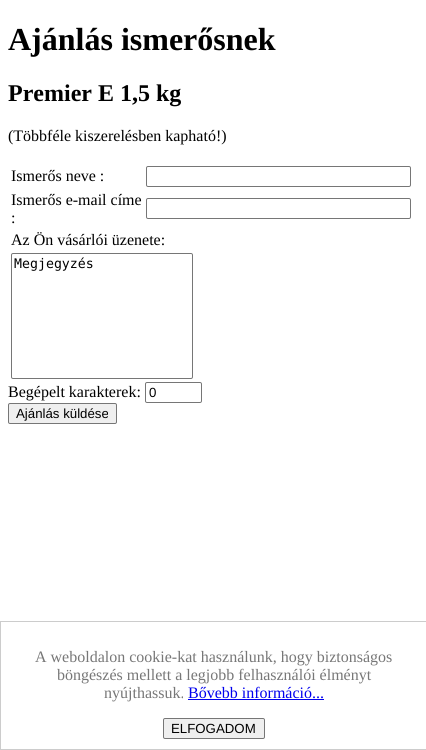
import math
import cairo


def round_path(ctx, x, y, w, h, r):
	ctx.new_sub_path()
	for i, (u, v) in enumerate([(x + w - r, y + h - r), (x + r, y + h - r), (x + r, y + r), (x + w - r, y + r)]):
		ctx.arc(u, v, r, i * math.pi / 2, (i + 1) * math.pi / 2)
	ctx.close_path()

def draw(ctx):
	ctx.set_source_rgb(1, 1, 1)
	ctx.paint()
	ctx.select_font_face('Liberation Serif', cairo.FONT_SLANT_NORMAL, cairo.FONT_WEIGHT_BOLD)
	ctx.set_font_size(32)
	ctx.set_source_rgb(0, 0, 0)
	ctx.move_to(8, 50)
	ctx.show_text('Ajánlás ismerősnek')
	ctx.set_font_size(24)
	ctx.move_to(8, 101)
	ctx.show_text('Premier E 1,5 kg')
	ctx.select_font_face('Liberation Serif')
	ctx.set_font_size(16)
	ctx.move_to(8, 141)
	ctx.show_text('(Többféle kiszerelésben kapható!)')
	ctx.move_to(11, 181)
	ctx.show_text('Ismerős neve :')
	round_path(ctx, 146.5, 166.5, 264, 20, 1.5)
	ctx.set_source_rgb(0.463, 0.463, 0.463)
	ctx.set_line_width(1)
	ctx.stroke()
	ctx.set_source_rgb(0, 0, 0)
	ctx.move_to(11, 205)
	ctx.show_text('Ismerős e-mail címe')
	ctx.move_to(11, 223)
	ctx.show_text(':')
	round_path(ctx, 146.5, 198.5, 264, 20, 1.5)
	ctx.set_source_rgb(0.463, 0.463, 0.463)
	ctx.stroke()
	ctx.set_source_rgb(0, 0, 0)
	ctx.move_to(11, 245)
	ctx.show_text('Az Ön vásárlói üzenete:')
	round_path(ctx, 11.5, 253.5, 181, 125, 1.5)
	ctx.set_source_rgb(0.463, 0.463, 0.463)
	ctx.stroke()
	ctx.select_font_face('DejaVu Sans Mono')
	ctx.set_font_size(13.25)
	ctx.set_source_rgb(0, 0, 0)
	ctx.move_to(14, 268)
	ctx.show_text('Megjegyzés')
	ctx.select_font_face('Liberation Serif')
	ctx.set_font_size(16)
	ctx.move_to(8, 397)
	ctx.show_text('Begépelt karakterek:')
	round_path(ctx, 145.5, 382.5, 56, 20, 1.5)
	ctx.set_source_rgb(0.463, 0.463, 0.463)
	ctx.stroke()
	ctx.select_font_face('Liberation Sans')
	ctx.set_font_size(13.25)
	ctx.set_source_rgb(0, 0, 0)
	ctx.move_to(149, 397)
	ctx.show_text('0')
	ctx.set_source_rgb(0.937, 0.937, 0.937)
	round_path(ctx, 8.5, 403.5, 108, 20, 1.5)
	ctx.fill_preserve()
	ctx.set_source_rgb(0.463, 0.463, 0.463)
	ctx.stroke()
	ctx.set_source_rgb(0, 0, 0)
	ctx.move_to(16, 418)
	ctx.show_text('Ajánlás küldése')
	ctx.rectangle(0.5, 621.5, 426, 128)
	ctx.set_source_rgb(0.8, 0.8, 0.8)
	ctx.stroke()
	ctx.select_font_face('Liberation Serif')
	ctx.set_font_size(16)
	ctx.set_source_rgb(0.467, 0.467, 0.467)
	for x, y, s in [
		(35, 662, 'A weboldalon cookie-kat használunk, hogy biztonságos'),
		(57, 680, 'böngészés mellett a legjobb felhasználói élményt'),
		(104, 698, 'nyújthassuk.'),
	]:
		ctx.move_to(x, y)
		ctx.show_text(s)
	ctx.set_source_rgb(0, 0, 0.933)
	ctx.move_to(188, 698)
	ctx.show_text('Bővebb információ...')
	ctx.rectangle(188, 699, 136, 1)
	ctx.fill()
	ctx.set_source_rgb(0.937, 0.937, 0.937)
	round_path(ctx, 163.5, 718.5, 101, 20, 1.5)
	ctx.fill_preserve()
	ctx.set_source_rgb(0.463, 0.463, 0.463)
	ctx.stroke()
	ctx.select_font_face('Liberation Sans')
	ctx.set_font_size(13.25)
	ctx.set_source_rgb(0, 0, 0)
	ctx.move_to(171, 733)
	ctx.show_text('ELFOGADOM')


surface = cairo.ImageSurface(cairo.FORMAT_RGB24, 426, 750)
ctx = cairo.Context(surface)
options = cairo.FontOptions()
options.set_hint_metrics(cairo.HINT_METRICS_OFF)
options.set_hint_style(cairo.HINT_STYLE_NONE)
ctx.set_font_options(options)
ctx.set_miter_limit(4)
draw(ctx)
surface.write_to_png('image.png')
